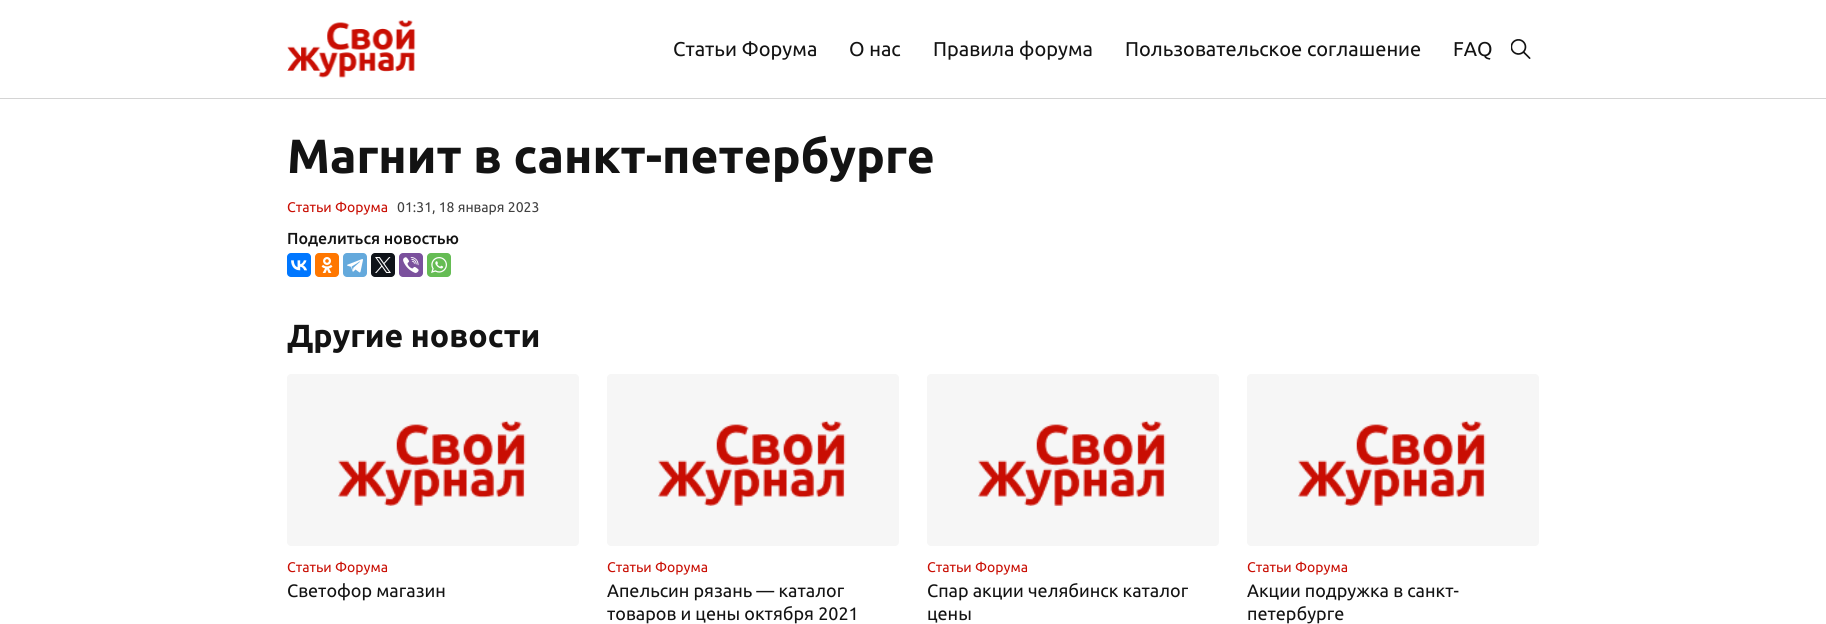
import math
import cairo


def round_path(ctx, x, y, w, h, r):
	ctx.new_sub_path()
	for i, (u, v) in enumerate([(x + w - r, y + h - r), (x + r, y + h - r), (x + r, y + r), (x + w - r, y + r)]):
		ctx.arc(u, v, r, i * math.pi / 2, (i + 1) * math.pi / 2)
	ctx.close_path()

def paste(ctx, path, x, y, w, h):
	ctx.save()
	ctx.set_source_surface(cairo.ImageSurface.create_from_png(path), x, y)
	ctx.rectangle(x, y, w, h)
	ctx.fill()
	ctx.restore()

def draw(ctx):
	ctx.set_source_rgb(1, 1, 1)
	ctx.paint()
	ctx.set_source_rgb(0.831, 0.831, 0.831)
	ctx.rectangle(0, 98, 1826, 1)
	ctx.fill()
	paste(ctx, 'media/1.png', 287, 20, 129, 58)
	ctx.select_font_face('Ubuntu')
	ctx.set_font_size(20)
	ctx.set_source_rgb(0.075, 0.075, 0.075)
	for x, y, s in [
		(673, 56, 'Статьи Форума'),
		(849, 56, 'О нас'),
		(933, 56, 'Правила форума'),
		(1125, 56, 'Пользовательское соглашение'),
		(1453, 56, 'FAQ'),
	]:
		ctx.move_to(x, y)
		ctx.show_text(s)
	paste(ctx, 'media/2.png', 1511, 39, 20, 20)
	ctx.select_font_face('Ubuntu', cairo.FONT_SLANT_NORMAL, cairo.FONT_WEIGHT_BOLD)
	ctx.set_font_size(48)
	ctx.move_to(287, 173)
	ctx.show_text('Магнит в санкт-петербурге')
	ctx.select_font_face('Ubuntu')
	ctx.set_font_size(14)
	ctx.set_source_rgb(0.788, 0.055, 0.012)
	ctx.move_to(287, 212)
	ctx.show_text('Статьи Форума')
	ctx.set_source_rgb(0.251, 0.251, 0.251)
	ctx.move_to(397, 212)
	ctx.show_text('01:31, 18 января 2023')
	ctx.select_font_face('Ubuntu Medium')
	ctx.set_font_size(16)
	ctx.set_source_rgb(0.075, 0.075, 0.075)
	ctx.move_to(287, 244)
	ctx.show_text('Поделиться новостью')
	ctx.set_source_rgb(0, 0.467, 1)
	round_path(ctx, 287, 253, 24, 24, 4)
	ctx.fill()
	paste(ctx, 'media/3.png', 291, 260, 16, 11)
	ctx.set_source_rgb(1, 0.467, 0)
	round_path(ctx, 315, 253, 24, 24, 4)
	ctx.fill()
	paste(ctx, 'media/4.png', 321, 257, 12, 16)
	ctx.set_source_rgb(0.392, 0.663, 0.863)
	round_path(ctx, 343, 253, 24, 24, 4)
	ctx.fill()
	paste(ctx, 'media/5.png', 347, 259, 16, 14)
	ctx.set_source_rgb(0.059, 0.078, 0.098)
	round_path(ctx, 371, 253, 24, 24, 4)
	ctx.fill()
	paste(ctx, 'media/6.png', 375, 257, 16, 16)
	ctx.set_source_rgb(0.482, 0.318, 0.616)
	round_path(ctx, 399, 253, 24, 24, 4)
	ctx.fill()
	paste(ctx, 'media/7.png', 403, 257, 16, 16)
	ctx.set_source_rgb(0.396, 0.737, 0.329)
	round_path(ctx, 427, 253, 24, 24, 4)
	ctx.fill()
	paste(ctx, 'media/8.png', 431, 257, 16, 16)
	ctx.select_font_face('Ubuntu', cairo.FONT_SLANT_NORMAL, cairo.FONT_WEIGHT_BOLD)
	ctx.set_font_size(32)
	ctx.set_source_rgb(0.075, 0.075, 0.075)
	ctx.move_to(287, 347)
	ctx.show_text('Другие новости')
	ctx.set_source_rgb(0.961, 0.961, 0.961)
	round_path(ctx, 287, 374, 292, 172, 4)
	ctx.fill()
	paste(ctx, 'media/9.png', 338, 420, 188, 86)
	ctx.select_font_face('Ubuntu')
	ctx.set_font_size(14)
	ctx.set_source_rgb(0.788, 0.055, 0.012)
	ctx.move_to(287, 572)
	ctx.show_text('Статьи Форума')
	ctx.set_font_size(18)
	ctx.set_source_rgb(0.075, 0.075, 0.075)
	ctx.move_to(287, 597)
	ctx.show_text('Светофор магазин')
	ctx.set_source_rgb(0.961, 0.961, 0.961)
	round_path(ctx, 607, 374, 292, 172, 4)
	ctx.fill()
	paste(ctx, 'media/10.png', 658, 420, 188, 86)
	ctx.set_font_size(14)
	ctx.set_source_rgb(0.788, 0.055, 0.012)
	ctx.move_to(607, 572)
	ctx.show_text('Статьи Форума')
	ctx.set_font_size(18)
	ctx.set_source_rgb(0.075, 0.075, 0.075)
	ctx.move_to(607, 597)
	ctx.show_text('Апельсин рязань — каталог')
	ctx.move_to(607, 620)
	ctx.show_text('товаров и цены октября 2021')
	ctx.set_source_rgb(0.961, 0.961, 0.961)
	round_path(ctx, 927, 374, 292, 172, 4)
	ctx.fill()
	paste(ctx, 'media/9.png', 978, 420, 188, 86)
	ctx.set_font_size(14)
	ctx.set_source_rgb(0.788, 0.055, 0.012)
	ctx.move_to(927, 572)
	ctx.show_text('Статьи Форума')
	ctx.set_font_size(18)
	ctx.set_source_rgb(0.075, 0.075, 0.075)
	ctx.move_to(927, 597)
	ctx.show_text('Спар акции челябинск каталог')
	ctx.move_to(927, 620)
	ctx.show_text('цены')
	ctx.set_source_rgb(0.961, 0.961, 0.961)
	round_path(ctx, 1247, 374, 292, 172, 4)
	ctx.fill()
	paste(ctx, 'media/11.png', 1298, 420, 188, 86)
	ctx.set_font_size(14)
	ctx.set_source_rgb(0.788, 0.055, 0.012)
	ctx.move_to(1247, 572)
	ctx.show_text('Статьи Форума')
	ctx.set_font_size(18)
	ctx.set_source_rgb(0.075, 0.075, 0.075)
	ctx.move_to(1247, 597)
	ctx.show_text('Акции подружка в санкт-')
	ctx.move_to(1247, 620)
	ctx.show_text('петербурге')


surface = cairo.ImageSurface(cairo.FORMAT_RGB24, 1826, 624)
ctx = cairo.Context(surface)
options = cairo.FontOptions()
options.set_hint_metrics(cairo.HINT_METRICS_OFF)
options.set_hint_style(cairo.HINT_STYLE_NONE)
ctx.set_font_options(options)
ctx.set_miter_limit(4)
draw(ctx)
surface.write_to_png('image.png')
